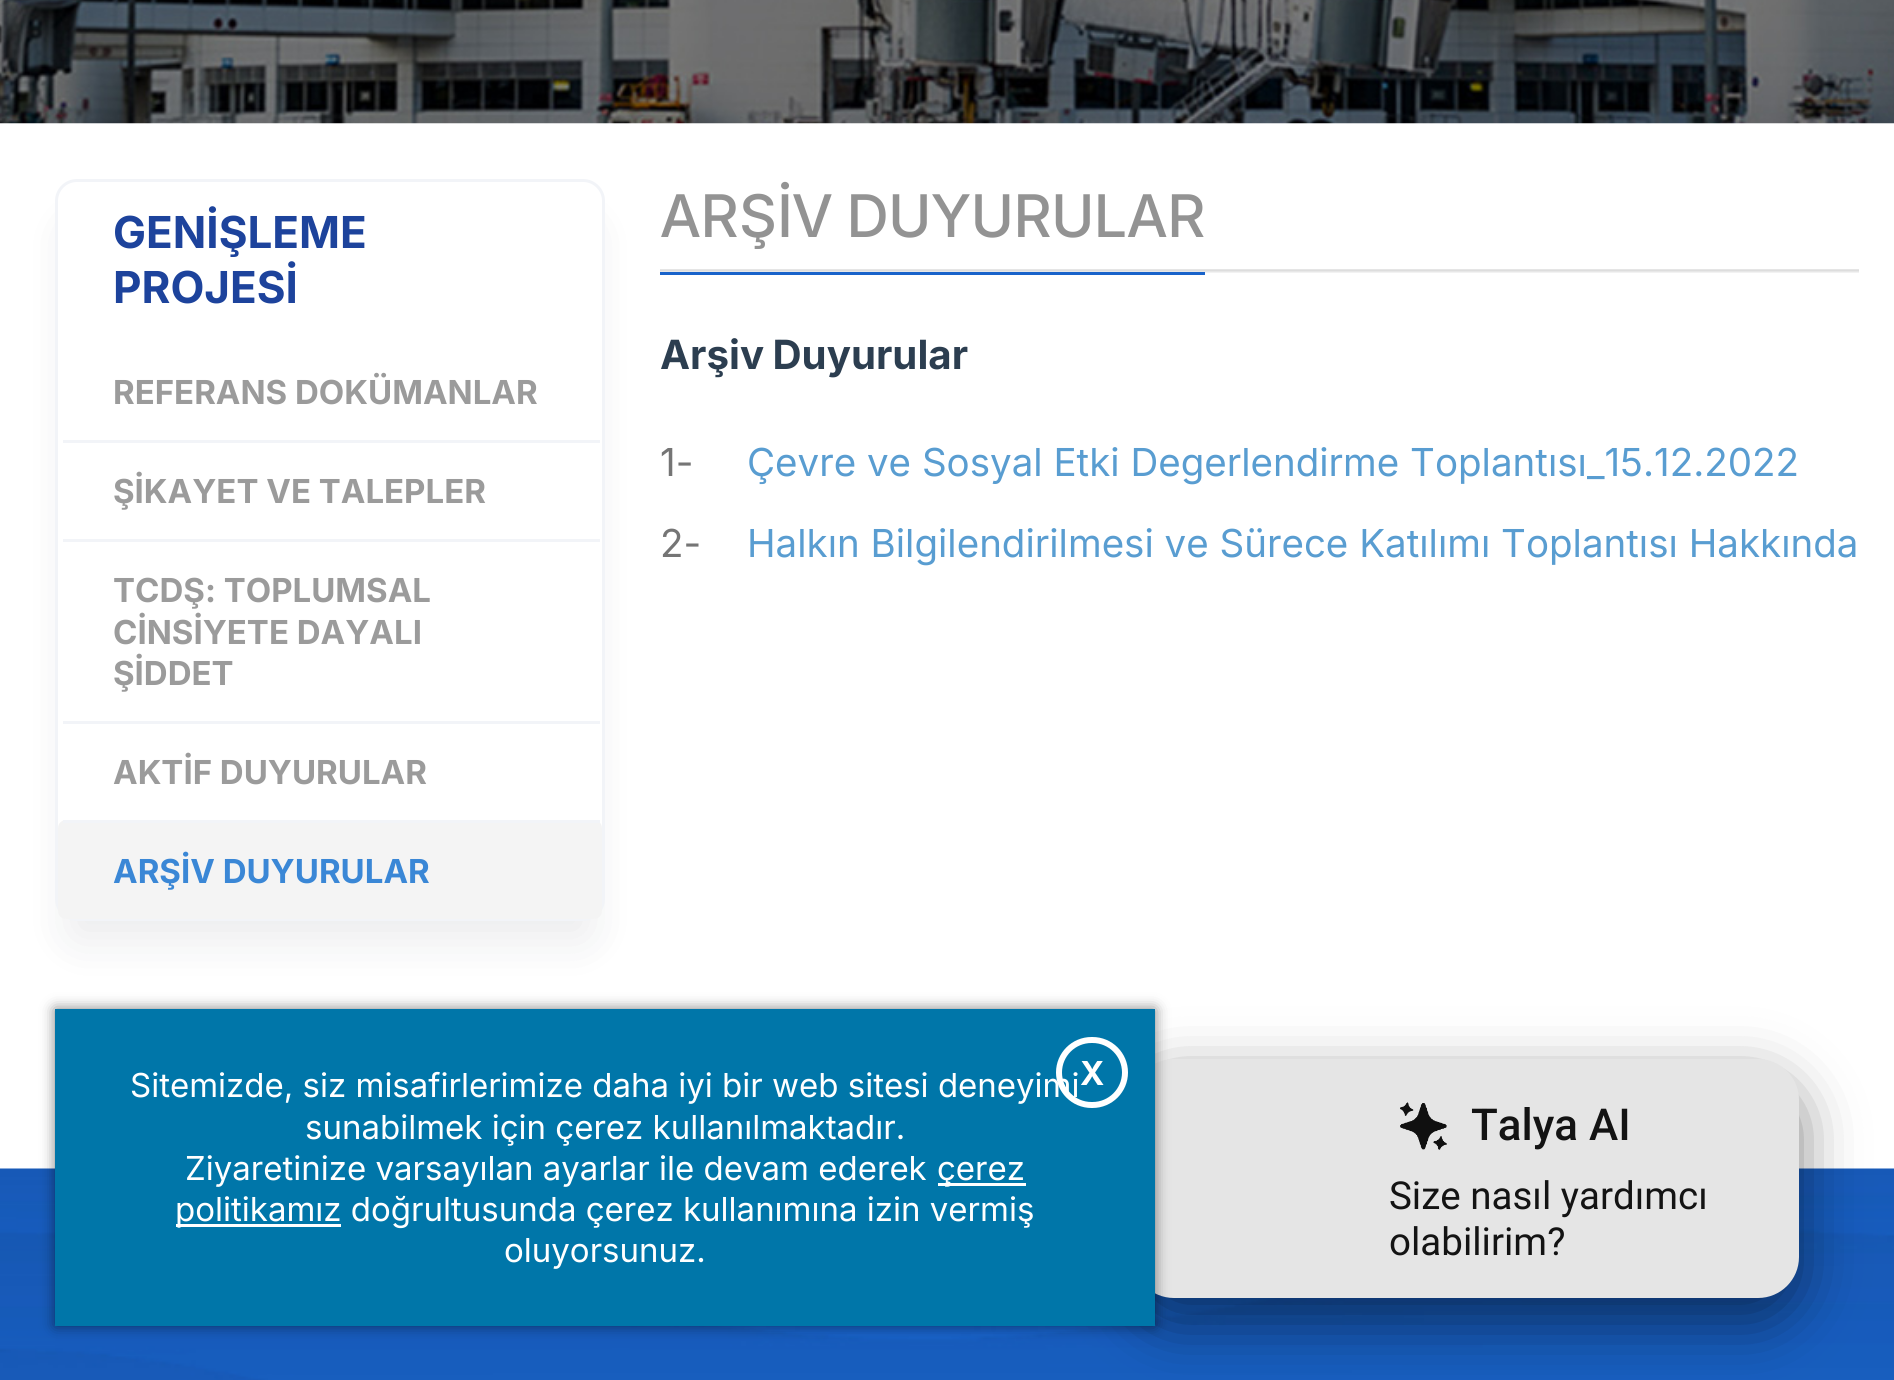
import math
import cairo


def write_spaced(ctx, x, y, s, letter, word):
	ctx.move_to(x, y)
	for ch in s:
		ctx.show_text(ch)
		ctx.rel_move_to(letter + word * (ch == ' '), 0)

def round_path(ctx, x, y, w, h, r):
	ctx.new_sub_path()
	for i, (u, v) in enumerate([(x + w - r, y + h - r), (x + r, y + h - r), (x + r, y + r), (x + w - r, y + r)]):
		ctx.arc(u, v, r, i * math.pi / 2, (i + 1) * math.pi / 2)
	ctx.close_path()

def blur_box(ctx, x, y, w, h, r, blur, alpha):
	ctx.push_group_with_content(cairo.CONTENT_ALPHA)
	ctx.set_operator(cairo.OPERATOR_SOURCE)
	for i in range(15, -16, -2):
		e = blur * i / 6
		if min(w, h) + 2 * e > 0:
			ctx.set_source_rgba(0, 0, 0, alpha * math.erfc((i - 1) / 8.5) / 2)
			round_path(ctx, x - e, y - e, w + 2 * e, h + 2 * e, max(0, min(r + e + blur * .6, min(w, h) / 2 + e)))
			ctx.fill()
	ctx.mask(ctx.pop_group())

def paste(ctx, path, x, y, w, h):
	ctx.save()
	ctx.set_source_surface(cairo.ImageSurface.create_from_png(path), x, y)
	ctx.rectangle(x, y, w, h)
	ctx.fill()
	ctx.restore()

def draw(ctx):
	ctx.set_source_rgb(1, 1, 1)
	ctx.paint()
	paste(ctx, 'media/1.png', 0, 0, 1894, 124)
	paste(ctx, 'media/2.png', 660, 269, 1199, 4)
	ctx.set_source_rgb(0.098, 0.388, 0.792)
	ctx.rectangle(660, 272, 545, 3)
	ctx.fill()
	ctx.set_source_rgb(0.063, 0.094, 0.157)
	blur_box(ctx, 66, 223, 528, 720, 11, 22, 0.08)
	ctx.set_source_rgb(1, 1, 1)
	round_path(ctx, 56.5, 180.5, 547, 739, 20.5)
	ctx.fill_preserve()
	ctx.set_source_rgb(0.949, 0.957, 0.969)
	ctx.set_line_width(3)
	ctx.stroke()
	ctx.select_font_face('Inter', cairo.FONT_SLANT_NORMAL, cairo.FONT_WEIGHT_BOLD)
	ctx.set_font_size(44)
	ctx.set_source_rgb(0.114, 0.263, 0.612)
	ctx.move_to(113, 248)
	ctx.show_text('GENİŞLEME')
	ctx.move_to(113, 303)
	ctx.show_text('PROJESİ')
	ctx.set_font_size(33)
	ctx.set_source_rgb(0.608, 0.608, 0.608)
	ctx.move_to(113, 404)
	ctx.show_text('REFERANS DOKÜMANLAR')
	ctx.set_source_rgb(0.949, 0.957, 0.969)
	ctx.rectangle(63, 440, 537, 3)
	ctx.fill()
	ctx.set_source_rgb(0.608, 0.608, 0.608)
	ctx.move_to(113, 503)
	ctx.show_text('ŞİKAYET VE TALEPLER')
	ctx.set_source_rgb(0.949, 0.957, 0.969)
	ctx.rectangle(63, 539, 537, 3)
	ctx.fill()
	ctx.set_source_rgb(0.608, 0.608, 0.608)
	for x, y, s in [
		(113, 602, 'TCDŞ: TOPLUMSAL'),
		(113, 644, 'CİNSİYETE DAYALI'),
		(113, 685, 'ŞİDDET'),
	]:
		ctx.move_to(x, y)
		ctx.show_text(s)
	ctx.set_source_rgb(0.949, 0.957, 0.969)
	ctx.rectangle(63, 721, 537, 3)
	ctx.fill()
	ctx.set_source_rgb(0.608, 0.608, 0.608)
	ctx.move_to(113, 784)
	ctx.show_text('AKTİF DUYURULAR')
	ctx.set_source_rgb(0.957, 0.957, 0.957)
	round_path(ctx, 58, 820, 544, 99, 8)
	ctx.fill()
	ctx.set_source_rgb(0.949, 0.957, 0.969)
	ctx.rectangle(63, 820, 537, 3)
	ctx.fill()
	ctx.set_source_rgb(0.227, 0.529, 0.839)
	ctx.move_to(113, 883)
	ctx.show_text('ARŞİV DUYURULAR')
	ctx.select_font_face('Inter Medium')
	ctx.set_font_size(58.75)
	ctx.set_source_rgb(0.576, 0.576, 0.576)
	ctx.move_to(660, 237)
	ctx.show_text('AR')
	ctx.select_font_face('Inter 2 Medium')
	ctx.move_to(739, 237)
	ctx.show_text('Şİ')
	ctx.select_font_face('Inter Medium')
	write_spaced(ctx, 792, 237, 'V DUYURULAR', 0, -1)
	ctx.select_font_face('Inter', cairo.FONT_SLANT_NORMAL, cairo.FONT_WEIGHT_BOLD)
	ctx.set_font_size(40.25)
	ctx.set_source_rgb(0.173, 0.243, 0.314)
	write_spaced(ctx, 660, 369, 'Arşiv Duyurular', 0, -1)
	ctx.select_font_face('Inter')
	ctx.set_font_size(38.5)
	ctx.set_source_rgb(0.459, 0.459, 0.459)
	ctx.move_to(660, 476)
	ctx.show_text('1-')
	ctx.set_source_rgb(0.349, 0.616, 0.82)
	ctx.move_to(747, 476)
	ctx.show_text('Çevre ve Sosyal Etki Degerlendirme Toplantısı_15.12.2022')
	ctx.set_source_rgb(0.459, 0.459, 0.459)
	ctx.move_to(660, 557)
	ctx.show_text('2-')
	ctx.set_source_rgb(0.349, 0.616, 0.82)
	ctx.move_to(747, 557)
	ctx.show_text('Halkın Bilgilendirilmesi ve Sürece Katılımı Toplantısı Hakkında')
	paste(ctx, 'media/3.png', 0, 1168, 1894, 212)
	ctx.set_source_rgb(0, 0, 0)
	blur_box(ctx, 1133, 1081, 666, 239, 41, 30, 0.5)
	ctx.set_source_rgb(0.898, 0.898, 0.898)
	round_path(ctx, 1133, 1059, 666, 239, 41)
	ctx.fill()
	ctx.set_source_rgb(0, 0, 0)
	blur_box(ctx, 55, 1009, 1100, 317, 0, 7, 0.5)
	ctx.set_source_rgb(0, 0.463, 0.663)
	ctx.rectangle(55, 1009, 1100, 317)
	ctx.fill()
	ctx.set_font_size(33)
	ctx.set_source_rgb(1, 1, 1)
	for x, y, s in [
		(130, 1097, 'Sitemizde, siz misafirlerimize daha iyi bir web sitesi deneyimi'),
		(305, 1139, 'sunabilmek için çerez kullanılmaktadır.'),
		(185, 1180, 'Ziyaretinize varsayılan ayarlar ile devam ederek'),
	]:
		ctx.move_to(x, y)
		ctx.show_text(s)
	ctx.rectangle(938, 1183, 88, 3)
	ctx.fill()
	ctx.move_to(937, 1180)
	ctx.show_text('çerez')
	ctx.rectangle(176, 1224, 165, 3)
	ctx.fill()
	ctx.move_to(175, 1221)
	ctx.show_text('politikamız doğrultusunda çerez kullanımına izin vermiş')
	ctx.move_to(504, 1262)
	ctx.show_text('oluyorsunuz.')
	round_path(ctx, 1059, 1040, 66, 65, 32.5)
	ctx.set_line_width(6)
	ctx.stroke()
	ctx.select_font_face('Inter', cairo.FONT_SLANT_NORMAL, cairo.FONT_WEIGHT_BOLD)
	ctx.move_to(1080, 1085)
	ctx.show_text('X')
	paste(ctx, 'media/4.png', 1400, 1102, 47, 48)
	ctx.select_font_face('Roboto Medium')
	ctx.set_font_size(44)
	ctx.set_source_rgb(0.078, 0.078, 0.078)
	ctx.move_to(1471, 1140)
	ctx.show_text('Talya AI')
	ctx.select_font_face('Roboto')
	ctx.set_font_size(38.5)
	ctx.move_to(1389, 1209)
	ctx.show_text('Size nasıl yardımcı')
	ctx.move_to(1389, 1255)
	ctx.show_text('olabilirim?')


surface = cairo.ImageSurface(cairo.FORMAT_RGB24, 1894, 1380)
ctx = cairo.Context(surface)
options = cairo.FontOptions()
options.set_hint_metrics(cairo.HINT_METRICS_OFF)
options.set_hint_style(cairo.HINT_STYLE_NONE)
ctx.set_font_options(options)
ctx.set_miter_limit(4)
draw(ctx)
surface.write_to_png('image.png')
